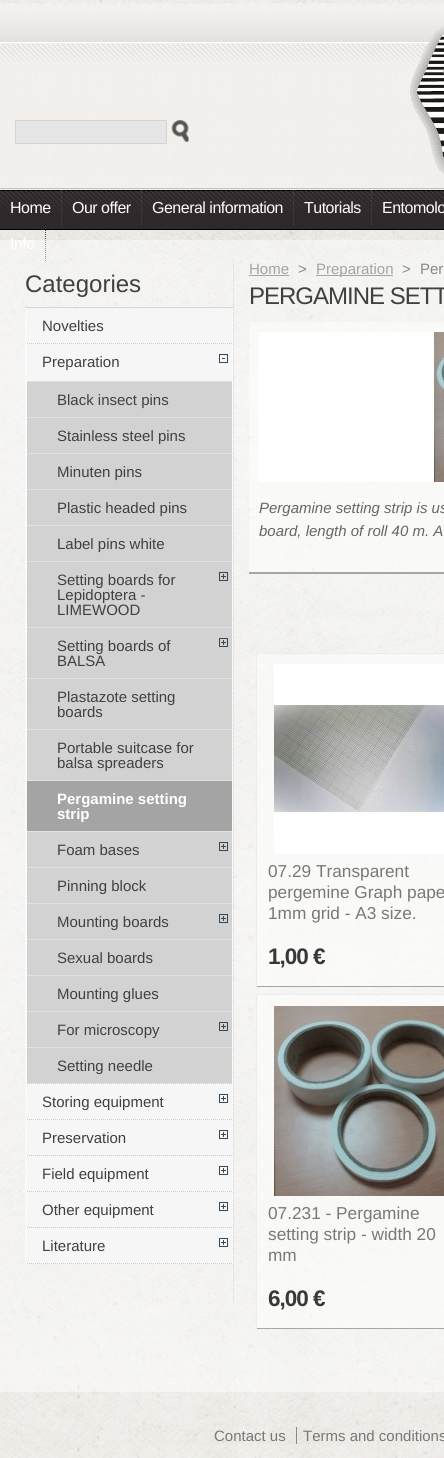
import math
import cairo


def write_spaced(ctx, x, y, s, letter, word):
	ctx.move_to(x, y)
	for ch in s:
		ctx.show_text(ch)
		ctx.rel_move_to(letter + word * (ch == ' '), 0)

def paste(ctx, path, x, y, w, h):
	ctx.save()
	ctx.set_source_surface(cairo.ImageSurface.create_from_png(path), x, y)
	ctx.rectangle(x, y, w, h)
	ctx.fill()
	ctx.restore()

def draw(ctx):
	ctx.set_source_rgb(1, 1, 1)
	ctx.paint()
	paste(ctx, 'media/1.png', 0, 0, 444, 1458)
	paste(ctx, 'media/2.png', 0, 3, 444, 227)
	ctx.set_source_rgb(0.902, 0.902, 0.902)
	ctx.rectangle(15.5, 120.5, 151, 23)
	ctx.fill_preserve()
	ctx.set_source_rgb(0.82, 0.835, 0.855)
	ctx.set_line_width(1)
	ctx.stroke()
	paste(ctx, 'media/3.png', 171, 120, 18, 22)
	paste(ctx, 'media/4.png', 410, 27, 34, 147)
	ctx.new_path()
	ctx.move_to(61.5, 190)
	ctx.line_to(61.5, 226)
	ctx.set_source_rgb(0.263, 0.267, 0.271)
	ctx.set_dash([1, 1])
	ctx.stroke()
	ctx.select_font_face('Liberation Sans')
	ctx.set_font_size(16)
	ctx.set_source_rgb(1, 1, 1)
	write_spaced(ctx, 10, 213, 'Home', -0.5, 0)
	ctx.new_path()
	ctx.move_to(141.5, 190)
	ctx.line_to(141.5, 226)
	ctx.set_source_rgb(0.263, 0.267, 0.271)
	ctx.stroke()
	ctx.set_source_rgb(1, 1, 1)
	write_spaced(ctx, 72, 213, 'Our offer', -0.5, 0)
	ctx.new_path()
	ctx.move_to(293.5, 190)
	ctx.line_to(293.5, 226)
	ctx.set_source_rgb(0.263, 0.267, 0.271)
	ctx.stroke()
	ctx.set_source_rgb(1, 1, 1)
	write_spaced(ctx, 152, 213, 'General information', -0.5, 0)
	ctx.new_path()
	ctx.move_to(371.5, 190)
	ctx.line_to(371.5, 226)
	ctx.set_source_rgb(0.263, 0.267, 0.271)
	ctx.stroke()
	ctx.set_source_rgb(1, 1, 1)
	write_spaced(ctx, 304, 213, 'Tutorials', -0.5, 0)
	write_spaced(ctx, 382, 213, 'Entomolo', -0.5, 0)
	ctx.new_path()
	ctx.move_to(45.5, 226)
	ctx.line_to(45.5, 262)
	ctx.set_source_rgb(0.263, 0.267, 0.271)
	ctx.stroke()
	ctx.set_source_rgb(1, 1, 1)
	write_spaced(ctx, 10, 249, 'Info', -0.5, 0)
	ctx.set_source_rgba(1, 1, 1, 0.47)
	ctx.rectangle(0, 240, 444, 1152)
	ctx.fill()
	ctx.new_path()
	ctx.move_to(233.5, 260)
	ctx.line_to(233.5, 1302)
	ctx.set_source_rgb(0.851, 0.851, 0.851)
	ctx.stroke()
	ctx.set_source_rgb(0.835, 0.835, 0.835)
	ctx.rectangle(25, 307, 208, 1)
	ctx.fill()
	ctx.set_font_size(24)
	ctx.set_source_rgb(0.251, 0.251, 0.251)
	ctx.move_to(25, 292)
	ctx.show_text('Categories')
	ctx.set_source_rgba(1, 1, 1, 0.47)
	ctx.rectangle(25, 308, 208, 956)
	ctx.fill()
	ctx.set_source_rgb(0.961, 0.961, 0.961)
	ctx.rectangle(27, 308, 205, 956)
	ctx.fill()
	ctx.new_path()
	ctx.move_to(27, 343.5)
	ctx.line_to(232, 343.5)
	ctx.set_source_rgb(0.8, 0.8, 0.8)
	ctx.stroke()
	ctx.set_font_size(15)
	ctx.set_source_rgb(0.251, 0.251, 0.251)
	ctx.move_to(42, 331)
	ctx.show_text('Novelties')
	ctx.new_path()
	ctx.move_to(27, 1083.5)
	ctx.line_to(232, 1083.5)
	ctx.set_source_rgb(0.8, 0.8, 0.8)
	ctx.stroke()
	ctx.set_source_rgb(0.251, 0.251, 0.251)
	ctx.move_to(42, 367)
	ctx.show_text('Preparation')
	paste(ctx, 'media/5.png', 219, 354, 9, 9)
	ctx.set_source_rgb(0.824, 0.824, 0.824)
	ctx.rectangle(27, 381, 205, 399)
	ctx.fill()
	ctx.new_path()
	ctx.move_to(27, 381.5)
	ctx.line_to(232, 381.5)
	ctx.set_source_rgb(0.925, 0.925, 0.925)
	ctx.stroke()
	ctx.set_source_rgb(0.251, 0.251, 0.251)
	ctx.move_to(57, 405)
	ctx.show_text('Black insect pins')
	ctx.new_path()
	ctx.move_to(27, 417.5)
	ctx.line_to(232, 417.5)
	ctx.set_source_rgb(0.925, 0.925, 0.925)
	ctx.stroke()
	ctx.set_source_rgb(0.251, 0.251, 0.251)
	ctx.move_to(57, 441)
	ctx.show_text('Stainless steel pins')
	ctx.new_path()
	ctx.move_to(27, 453.5)
	ctx.line_to(232, 453.5)
	ctx.set_source_rgb(0.925, 0.925, 0.925)
	ctx.stroke()
	ctx.set_source_rgb(0.251, 0.251, 0.251)
	ctx.move_to(57, 477)
	ctx.show_text('Minuten pins')
	ctx.new_path()
	ctx.move_to(27, 489.5)
	ctx.line_to(232, 489.5)
	ctx.set_source_rgb(0.925, 0.925, 0.925)
	ctx.stroke()
	ctx.set_source_rgb(0.251, 0.251, 0.251)
	ctx.move_to(57, 513)
	ctx.show_text('Plastic headed pins')
	ctx.new_path()
	ctx.move_to(27, 525.5)
	ctx.line_to(232, 525.5)
	ctx.set_source_rgb(0.925, 0.925, 0.925)
	ctx.stroke()
	ctx.set_source_rgb(0.251, 0.251, 0.251)
	ctx.move_to(57, 549)
	ctx.show_text('Label pins white')
	ctx.new_path()
	ctx.move_to(27, 561.5)
	ctx.line_to(232, 561.5)
	ctx.set_source_rgb(0.925, 0.925, 0.925)
	ctx.stroke()
	ctx.set_source_rgb(0.251, 0.251, 0.251)
	for x, y, s in [
		(57, 585, 'Setting boards for'),
		(57, 600, 'Lepidoptera -'),
		(57, 615, 'LIMEWOOD'),
	]:
		ctx.move_to(x, y)
		ctx.show_text(s)
	paste(ctx, 'media/6.png', 219, 572, 9, 9)
	ctx.new_path()
	ctx.move_to(27, 627.5)
	ctx.line_to(232, 627.5)
	ctx.set_source_rgb(0.925, 0.925, 0.925)
	ctx.stroke()
	ctx.set_source_rgb(0.251, 0.251, 0.251)
	ctx.move_to(57, 651)
	ctx.show_text('Setting boards of')
	ctx.move_to(57, 666)
	ctx.show_text('BALSA')
	paste(ctx, 'media/6.png', 219, 638, 9, 9)
	ctx.new_path()
	ctx.move_to(27, 678.5)
	ctx.line_to(232, 678.5)
	ctx.set_source_rgb(0.925, 0.925, 0.925)
	ctx.stroke()
	ctx.set_source_rgb(0.251, 0.251, 0.251)
	ctx.move_to(57, 702)
	ctx.show_text('Plastazote setting')
	ctx.move_to(57, 717)
	ctx.show_text('boards')
	ctx.new_path()
	ctx.move_to(27, 729.5)
	ctx.line_to(232, 729.5)
	ctx.set_source_rgb(0.925, 0.925, 0.925)
	ctx.stroke()
	ctx.set_source_rgb(0.251, 0.251, 0.251)
	ctx.move_to(57, 753)
	ctx.show_text('Portable suitcase for')
	ctx.move_to(57, 768)
	ctx.show_text('balsa spreaders')
	ctx.set_source_rgb(0.824, 0.824, 0.824)
	ctx.rectangle(28, 780, 203, 1)
	ctx.fill()
	ctx.new_path()
	ctx.move_to(27, 780.5)
	ctx.line_to(232, 780.5)
	ctx.set_source_rgb(0.925, 0.925, 0.925)
	ctx.stroke()
	ctx.set_source_rgb(0.643, 0.643, 0.643)
	ctx.rectangle(27, 781, 205, 50)
	ctx.fill()
	ctx.select_font_face('Liberation Sans', cairo.FONT_SLANT_NORMAL, cairo.FONT_WEIGHT_BOLD)
	ctx.set_source_rgb(1, 1, 1)
	ctx.move_to(57, 804)
	ctx.show_text('Pergamine setting')
	ctx.move_to(57, 819)
	ctx.show_text('strip')
	ctx.set_source_rgb(0.824, 0.824, 0.824)
	ctx.rectangle(27, 831, 205, 252)
	ctx.fill()
	ctx.new_path()
	ctx.move_to(27, 831.5)
	ctx.line_to(232, 831.5)
	ctx.set_source_rgb(0.925, 0.925, 0.925)
	ctx.stroke()
	ctx.select_font_face('Liberation Sans')
	ctx.set_source_rgb(0.251, 0.251, 0.251)
	ctx.move_to(57, 855)
	ctx.show_text('Foam bases')
	paste(ctx, 'media/6.png', 219, 842, 9, 9)
	ctx.new_path()
	ctx.move_to(27, 867.5)
	ctx.line_to(232, 867.5)
	ctx.set_source_rgb(0.925, 0.925, 0.925)
	ctx.stroke()
	ctx.set_source_rgb(0.251, 0.251, 0.251)
	ctx.move_to(57, 891)
	ctx.show_text('Pinning block')
	ctx.new_path()
	ctx.move_to(27, 903.5)
	ctx.line_to(232, 903.5)
	ctx.set_source_rgb(0.925, 0.925, 0.925)
	ctx.stroke()
	ctx.set_source_rgb(0.251, 0.251, 0.251)
	ctx.move_to(57, 927)
	ctx.show_text('Mounting boards')
	paste(ctx, 'media/6.png', 219, 914, 9, 9)
	ctx.new_path()
	ctx.move_to(27, 939.5)
	ctx.line_to(232, 939.5)
	ctx.set_source_rgb(0.925, 0.925, 0.925)
	ctx.stroke()
	ctx.set_source_rgb(0.251, 0.251, 0.251)
	ctx.move_to(57, 963)
	ctx.show_text('Sexual boards')
	ctx.new_path()
	ctx.move_to(27, 975.5)
	ctx.line_to(232, 975.5)
	ctx.set_source_rgb(0.925, 0.925, 0.925)
	ctx.stroke()
	ctx.set_source_rgb(0.251, 0.251, 0.251)
	ctx.move_to(57, 999)
	ctx.show_text('Mounting glues')
	ctx.new_path()
	ctx.move_to(27, 1011.5)
	ctx.line_to(232, 1011.5)
	ctx.set_source_rgb(0.925, 0.925, 0.925)
	ctx.stroke()
	ctx.set_source_rgb(0.251, 0.251, 0.251)
	ctx.move_to(57, 1035)
	ctx.show_text('For microscopy')
	paste(ctx, 'media/6.png', 219, 1022, 9, 9)
	ctx.new_path()
	ctx.move_to(27, 1047.5)
	ctx.line_to(232, 1047.5)
	ctx.set_source_rgb(0.925, 0.925, 0.925)
	ctx.stroke()
	ctx.set_source_rgb(0.251, 0.251, 0.251)
	ctx.move_to(57, 1071)
	ctx.show_text('Setting needle')
	ctx.new_path()
	ctx.move_to(27, 1119.5)
	ctx.line_to(232, 1119.5)
	ctx.set_source_rgb(0.8, 0.8, 0.8)
	ctx.stroke()
	ctx.set_source_rgb(0.251, 0.251, 0.251)
	ctx.move_to(42, 1107)
	ctx.show_text('Storing equipment')
	paste(ctx, 'media/7.png', 219, 1094, 9, 9)
	ctx.new_path()
	ctx.move_to(27, 1155.5)
	ctx.line_to(232, 1155.5)
	ctx.set_source_rgb(0.8, 0.8, 0.8)
	ctx.stroke()
	ctx.set_source_rgb(0.251, 0.251, 0.251)
	ctx.move_to(42, 1143)
	ctx.show_text('Preservation')
	paste(ctx, 'media/7.png', 219, 1130, 9, 9)
	ctx.new_path()
	ctx.move_to(27, 1191.5)
	ctx.line_to(232, 1191.5)
	ctx.set_source_rgb(0.8, 0.8, 0.8)
	ctx.stroke()
	ctx.set_source_rgb(0.251, 0.251, 0.251)
	ctx.move_to(42, 1179)
	ctx.show_text('Field equipment')
	paste(ctx, 'media/7.png', 219, 1166, 9, 9)
	ctx.new_path()
	ctx.move_to(27, 1227.5)
	ctx.line_to(232, 1227.5)
	ctx.set_source_rgb(0.8, 0.8, 0.8)
	ctx.stroke()
	ctx.set_source_rgb(0.251, 0.251, 0.251)
	ctx.move_to(42, 1215)
	ctx.show_text('Other equipment')
	paste(ctx, 'media/7.png', 219, 1202, 9, 9)
	ctx.new_path()
	ctx.move_to(27, 1263.5)
	ctx.line_to(232, 1263.5)
	ctx.set_source_rgb(0.8, 0.8, 0.8)
	ctx.stroke()
	ctx.set_source_rgb(0.251, 0.251, 0.251)
	ctx.move_to(42, 1251)
	ctx.show_text('Literature')
	paste(ctx, 'media/7.png', 219, 1238, 9, 9)
	ctx.set_source_rgb(0.643, 0.643, 0.643)
	ctx.move_to(249, 274)
	ctx.show_text('Home')
	ctx.rectangle(249, 275, 40, 1)
	ctx.fill()
	ctx.set_source_rgb(0.533, 0.533, 0.533)
	ctx.move_to(298, 274)
	ctx.show_text('>')
	ctx.set_source_rgb(0.643, 0.643, 0.643)
	ctx.rectangle(316, 275, 77, 1)
	ctx.fill()
	ctx.move_to(316, 274)
	ctx.show_text('Preparation')
	ctx.set_source_rgb(0.533, 0.533, 0.533)
	ctx.move_to(402, 274)
	ctx.show_text('>')
	ctx.move_to(420, 274)
	ctx.show_text('Per')
	ctx.set_font_size(24)
	ctx.set_source_rgb(0.251, 0.251, 0.251)
	write_spaced(ctx, 249, 304, 'PERGAMINE SETT', -1, 0)
	ctx.set_source_rgba(1, 1, 1, 0.47)
	ctx.rectangle(249, 322, 195, 250)
	ctx.fill()
	ctx.set_source_rgb(0.651, 0.651, 0.651)
	ctx.rectangle(249, 572, 195, 2)
	ctx.fill()
	paste(ctx, 'media/8.png', 259, 332, 185, 150)
	ctx.select_font_face('Liberation Sans', cairo.FONT_SLANT_ITALIC)
	ctx.set_font_size(15)
	ctx.set_source_rgb(0.4, 0.4, 0.4)
	ctx.move_to(259, 513)
	ctx.show_text('Pergamine setting strip is us')
	ctx.move_to(259, 536)
	ctx.show_text('board, length of roll 40 m. A')
	ctx.set_source_rgba(1, 1, 1, 0.47)
	ctx.rectangle(257, 654, 187, 332)
	ctx.fill()
	ctx.set_source_rgb(0.925, 0.925, 0.925)
	ctx.rectangle(256, 653, 188, 1)
	ctx.fill()
	ctx.set_source_rgb(0.651, 0.651, 0.651)
	ctx.rectangle(256, 986, 188, 1)
	ctx.fill()
	ctx.set_source_rgb(0.925, 0.925, 0.925)
	ctx.rectangle(256, 653, 1, 334)
	ctx.fill()
	paste(ctx, 'media/9.png', 274, 664, 170, 190)
	ctx.select_font_face('Liberation Sans')
	ctx.set_font_size(17.25)
	ctx.set_source_rgb(0.471, 0.471, 0.471)
	for x, y, s in [
		(268, 877, '07.29 Transparent'),
		(268, 898, 'pergemine Graph pape'),
		(268, 919, '1mm grid - A3 size.'),
	]:
		ctx.move_to(x, y)
		ctx.show_text(s)
	ctx.select_font_face('Liberation Sans', cairo.FONT_SLANT_NORMAL, cairo.FONT_WEIGHT_BOLD)
	ctx.set_font_size(22.5)
	ctx.set_source_rgb(0.22, 0.22, 0.22)
	write_spaced(ctx, 268, 964, '1,00 €', -1, 0)
	ctx.set_source_rgba(1, 1, 1, 0.47)
	ctx.rectangle(257, 995, 187, 333)
	ctx.fill()
	ctx.set_source_rgb(0.925, 0.925, 0.925)
	ctx.rectangle(256, 994, 188, 1)
	ctx.fill()
	ctx.set_source_rgb(0.651, 0.651, 0.651)
	ctx.rectangle(256, 1328, 188, 1)
	ctx.fill()
	ctx.set_source_rgb(0.925, 0.925, 0.925)
	ctx.rectangle(256, 994, 1, 335)
	ctx.fill()
	paste(ctx, 'media/10.png', 274, 1006, 170, 190)
	ctx.select_font_face('Liberation Sans')
	ctx.set_font_size(17.25)
	ctx.set_source_rgb(0.471, 0.471, 0.471)
	for x, y, s in [
		(268, 1219, '07.231 - Pergamine'),
		(268, 1240, 'setting strip - width 20'),
		(268, 1261, 'mm'),
	]:
		ctx.move_to(x, y)
		ctx.show_text(s)
	ctx.select_font_face('Liberation Sans', cairo.FONT_SLANT_NORMAL, cairo.FONT_WEIGHT_BOLD)
	ctx.set_font_size(22.5)
	ctx.set_source_rgb(0.22, 0.22, 0.22)
	write_spaced(ctx, 268, 1306, '6,00 €', -1, 0)
	ctx.select_font_face('Liberation Sans')
	ctx.set_font_size(15)
	ctx.set_source_rgb(0.471, 0.471, 0.471)
	ctx.move_to(214, 1441)
	ctx.show_text('Contact us')
	ctx.move_to(303, 1441)
	ctx.show_text('Terms and conditions')
	ctx.set_source_rgb(0.533, 0.533, 0.533)
	ctx.rectangle(296, 1427, 1, 17)
	ctx.fill()


surface = cairo.ImageSurface(cairo.FORMAT_RGB24, 444, 1458)
ctx = cairo.Context(surface)
options = cairo.FontOptions()
options.set_hint_metrics(cairo.HINT_METRICS_OFF)
options.set_hint_style(cairo.HINT_STYLE_NONE)
ctx.set_font_options(options)
ctx.set_miter_limit(4)
draw(ctx)
surface.write_to_png('image.png')
